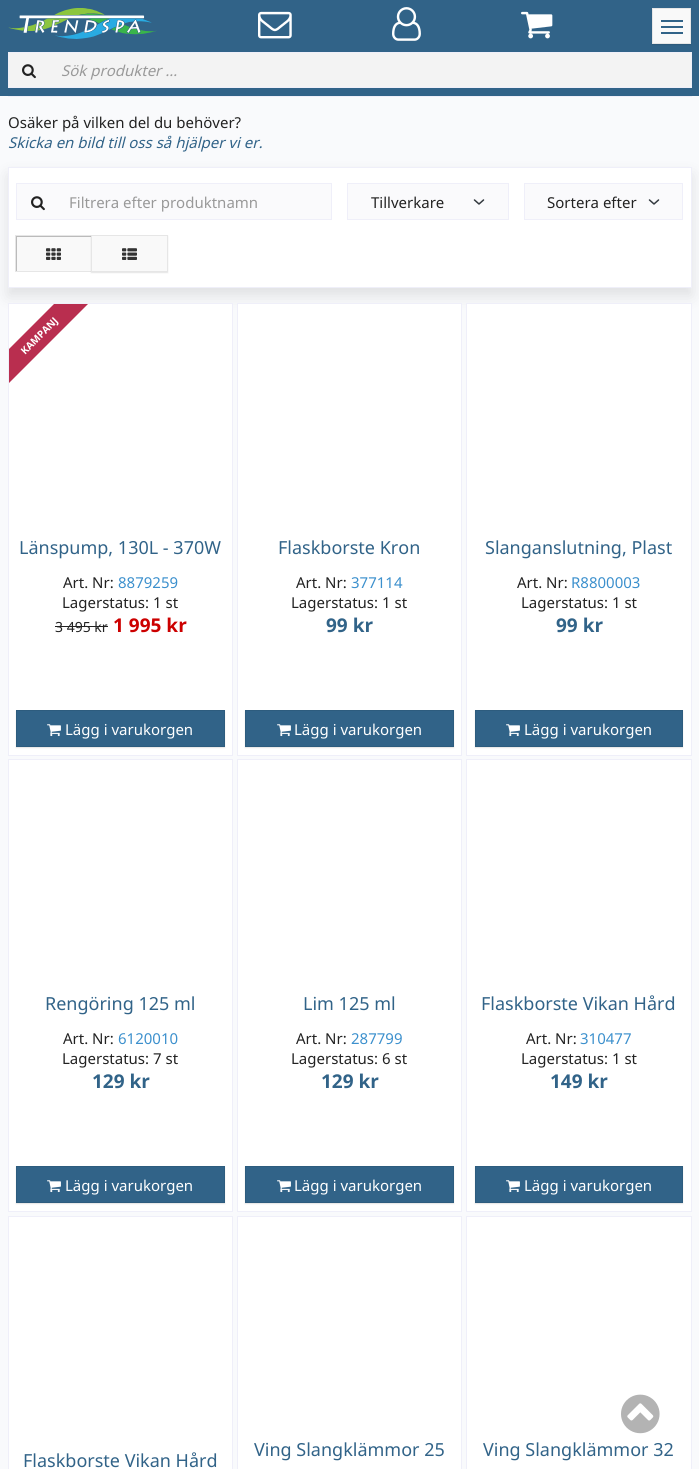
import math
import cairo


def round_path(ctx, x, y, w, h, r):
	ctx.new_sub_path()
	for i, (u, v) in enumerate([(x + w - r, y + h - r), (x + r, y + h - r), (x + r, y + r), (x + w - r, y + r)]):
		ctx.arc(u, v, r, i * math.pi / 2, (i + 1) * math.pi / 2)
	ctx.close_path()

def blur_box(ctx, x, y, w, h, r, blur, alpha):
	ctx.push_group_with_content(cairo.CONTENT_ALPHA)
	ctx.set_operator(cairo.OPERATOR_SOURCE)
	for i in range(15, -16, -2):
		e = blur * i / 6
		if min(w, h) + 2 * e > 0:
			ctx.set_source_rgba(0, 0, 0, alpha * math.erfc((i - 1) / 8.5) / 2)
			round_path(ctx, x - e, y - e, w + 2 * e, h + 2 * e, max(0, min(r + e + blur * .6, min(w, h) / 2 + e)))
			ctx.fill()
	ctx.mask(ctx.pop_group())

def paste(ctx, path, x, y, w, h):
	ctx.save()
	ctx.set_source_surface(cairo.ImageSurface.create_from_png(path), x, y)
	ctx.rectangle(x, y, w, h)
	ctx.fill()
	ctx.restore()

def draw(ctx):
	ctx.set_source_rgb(0.976, 0.98, 0.988)
	ctx.paint()
	ctx.rectangle(8.5, -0.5, 683, 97)
	ctx.set_source_rgb(0.937, 0.937, 0.976)
	ctx.set_line_width(1)
	ctx.stroke()
	ctx.set_source_rgb(0.192, 0.388, 0.533)
	ctx.rectangle(0, 0, 699, 96)
	ctx.fill()
	paste(ctx, 'media/1.png', 8, 8, 149, 31)
	paste(ctx, 'media/2.png', 258, 11, 34, 28)
	paste(ctx, 'media/3.png', 392, 7, 29, 34)
	paste(ctx, 'media/4.png', 521, 11, 32, 28)
	ctx.set_source_rgb(0, 0, 0)
	blur_box(ctx, 652, 9, 39, 36, 0, 0.5, 0.1)
	ctx.set_source_rgb(0.976, 0.976, 0.976)
	ctx.rectangle(652.5, 8.5, 38, 35)
	ctx.fill_preserve()
	ctx.set_source_rgb(0.902, 0.902, 0.902)
	ctx.stroke()
	ctx.set_source_rgb(0.192, 0.388, 0.533)
	ctx.rectangle(661, 20, 22, 2)
	ctx.rectangle(661, 26, 22, 2)
	ctx.rectangle(661, 32, 22, 2)
	ctx.fill()
	ctx.set_source_rgb(0.953, 0.953, 0.953)
	ctx.rectangle(8.5, 52.5, 683, 35)
	ctx.fill_preserve()
	ctx.set_source_rgb(0.937, 0.937, 0.976)
	ctx.stroke()
	paste(ctx, 'media/5.png', 22, 64, 14, 15)
	ctx.select_font_face('Noto Sans', cairo.FONT_SLANT_ITALIC)
	ctx.set_font_size(15)
	ctx.set_source_rgb(0.6, 0.6, 0.6)
	ctx.move_to(61, 76)
	ctx.show_text('Sök produkter …')
	ctx.select_font_face('Noto Sans')
	ctx.set_source_rgb(0.133, 0.133, 0.133)
	ctx.move_to(8, 128)
	ctx.show_text('Osäker på vilken del du behöver?')
	ctx.set_source_rgb(0, 0, 0)
	blur_box(ctx, 8, 175, 684, 121, 0, 7.5, 0.1)
	ctx.select_font_face('Noto Sans', cairo.FONT_SLANT_ITALIC)
	ctx.set_source_rgb(0.192, 0.388, 0.533)
	ctx.move_to(8, 148)
	ctx.show_text('Skicka en bild till oss så hjälper vi er.')
	ctx.set_source_rgb(1, 1, 1)
	ctx.rectangle(8.5, 167.5, 683, 120)
	ctx.fill_preserve()
	ctx.set_source_rgb(0.937, 0.937, 0.976)
	ctx.stroke()
	ctx.set_source_rgb(0.98, 0.98, 0.988)
	ctx.rectangle(16.5, 183.5, 315, 36)
	ctx.fill_preserve()
	ctx.set_source_rgb(0.937, 0.937, 0.976)
	ctx.stroke()
	paste(ctx, 'media/6.png', 31, 196, 14, 15)
	ctx.select_font_face('Noto Sans')
	ctx.set_source_rgb(0.6, 0.6, 0.6)
	ctx.move_to(69, 208)
	ctx.show_text('Filtrera efter produktnamn')
	ctx.set_source_rgb(0.98, 0.98, 0.988)
	ctx.rectangle(348, 184, 160, 35)
	ctx.fill()
	ctx.new_path()
	ctx.move_to(474.5, 200)
	ctx.line_to(479, 204)
	ctx.line_to(483.5, 200)
	ctx.set_source_rgb(0.204, 0.227, 0.251)
	ctx.set_line_width(1.5)
	ctx.set_line_cap(cairo.LINE_CAP_ROUND)
	ctx.set_line_join(cairo.LINE_JOIN_ROUND)
	ctx.stroke()
	ctx.rectangle(347.5, 183.5, 161, 36)
	ctx.set_source_rgb(0.937, 0.937, 0.976)
	ctx.set_line_width(1)
	ctx.set_line_cap(cairo.LINE_CAP_BUTT)
	ctx.set_line_join(cairo.LINE_JOIN_MITER)
	ctx.stroke()
	ctx.set_source_rgb(0.133, 0.133, 0.133)
	ctx.move_to(371, 208)
	ctx.show_text('Tillverkare')
	ctx.set_source_rgb(0.98, 0.98, 0.988)
	ctx.rectangle(525, 184, 157, 35)
	ctx.fill()
	ctx.new_path()
	ctx.move_to(649.5, 200)
	ctx.line_to(654, 204)
	ctx.line_to(658.5, 200)
	ctx.set_source_rgb(0.204, 0.227, 0.251)
	ctx.set_line_width(1.5)
	ctx.set_line_cap(cairo.LINE_CAP_ROUND)
	ctx.set_line_join(cairo.LINE_JOIN_ROUND)
	ctx.stroke()
	ctx.rectangle(524.5, 183.5, 158, 36)
	ctx.set_source_rgb(0.937, 0.937, 0.976)
	ctx.set_line_width(1)
	ctx.set_line_cap(cairo.LINE_CAP_BUTT)
	ctx.set_line_join(cairo.LINE_JOIN_MITER)
	ctx.stroke()
	ctx.set_source_rgb(0.133, 0.133, 0.133)
	ctx.move_to(547, 208)
	ctx.show_text('Sortera efter')
	ctx.set_source_rgb(0.976, 0.976, 0.976)
	ctx.rectangle(17, 237, 74, 34)
	ctx.fill()
	ctx.save()
	ctx.rectangle(16, 236, 75, 35)
	ctx.clip()
	ctx.set_source_rgb(0.733, 0.733, 0.733)
	ctx.set_fill_rule(cairo.FILL_RULE_EVEN_ODD)
	ctx.new_path()
	ctx.move_to(-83, 137)
	ctx.line_to(190, 137)
	ctx.line_to(190, 370)
	ctx.line_to(-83, 370)
	ctx.close_path()
	ctx.move_to(17, 237)
	ctx.line_to(92, 237)
	ctx.line_to(92, 272)
	ctx.line_to(17, 272)
	ctx.close_path()
	ctx.fill()
	ctx.restore()
	ctx.rectangle(15.5, 235.5, 76, 36)
	ctx.set_source_rgb(0.902, 0.902, 0.902)
	ctx.stroke()
	paste(ctx, 'media/7.png', 46, 248, 15, 12)
	ctx.set_source_rgb(0, 0, 0)
	blur_box(ctx, 91, 236, 77, 37, 0, 0.5, 0.1)
	ctx.set_source_rgb(0.976, 0.976, 0.976)
	ctx.rectangle(91.5, 235.5, 76, 36)
	ctx.fill_preserve()
	ctx.set_source_rgb(0.902, 0.902, 0.902)
	ctx.stroke()
	paste(ctx, 'media/8.png', 122, 248, 15, 12)
	ctx.set_source_rgb(1, 1, 1)
	ctx.rectangle(8.5, 303.5, 224, 452)
	ctx.fill_preserve()
	ctx.set_source_rgb(0.937, 0.937, 0.976)
	ctx.stroke()
	ctx.save()
	ctx.rectangle(9, 304, 223, 451)
	ctx.clip()
	ctx.set_source_rgb(0.725, 0.18, 0.31)
	ctx.new_path()
	ctx.move_to(-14, 372)
	ctx.line_to(75, 283)
	ctx.line_to(92, 300)
	ctx.line_to(3, 389)
	ctx.close_path()
	ctx.fill()
	ctx.restore()
	ctx.select_font_face('Noto Sans', cairo.FONT_SLANT_NORMAL, cairo.FONT_WEIGHT_BOLD)
	ctx.set_font_size(10)
	ctx.set_source_rgb(1, 1, 1)
	ctx.save()
	ctx.translate(25, 355)
	ctx.rotate(-45 * math.pi / 180)
	ctx.move_to(0, 0)
	ctx.show_text('KAMPANJ')
	ctx.restore()
	ctx.select_font_face('Noto Sans')
	ctx.set_font_size(18)
	ctx.set_source_rgb(0.192, 0.388, 0.533)
	ctx.move_to(19, 554)
	ctx.show_text('Länspump, 130L - 370W')
	ctx.set_font_size(15)
	ctx.set_source_rgb(0.133, 0.133, 0.133)
	ctx.move_to(63, 588)
	ctx.show_text('Art. Nr:')
	ctx.set_source_rgb(0.235, 0.565, 0.804)
	ctx.move_to(118, 588)
	ctx.show_text('8879259')
	ctx.set_source_rgb(0.133, 0.133, 0.133)
	ctx.move_to(62, 608)
	ctx.show_text('Lagerstatus: 1 st')
	ctx.set_font_size(14)
	ctx.move_to(55, 632)
	ctx.show_text('3 495 kr')
	ctx.rectangle(55, 626, 53, 1)
	ctx.fill()
	ctx.select_font_face('Noto Sans', cairo.FONT_SLANT_NORMAL, cairo.FONT_WEIGHT_BOLD)
	ctx.set_font_size(19)
	ctx.set_source_rgb(0.8, 0, 0)
	ctx.move_to(113, 632)
	ctx.show_text('1 995 kr')
	ctx.set_source_rgb(0, 0, 0)
	blur_box(ctx, 16, 711, 209, 37, 0, 0.5, 0.1)
	ctx.set_source_rgb(0.192, 0.388, 0.533)
	ctx.rectangle(16.5, 710.5, 208, 36)
	ctx.fill_preserve()
	ctx.set_source_rgb(0.176, 0.361, 0.494)
	ctx.stroke()
	paste(ctx, 'media/9.png', 47, 724, 14, 13)
	ctx.select_font_face('Noto Sans')
	ctx.set_font_size(15)
	ctx.set_source_rgb(1, 1, 1)
	ctx.move_to(65, 735)
	ctx.show_text('Lägg i varukorgen')
	ctx.rectangle(237.5, 303.5, 224, 452)
	ctx.fill_preserve()
	ctx.set_source_rgb(0.937, 0.937, 0.976)
	ctx.stroke()
	ctx.set_font_size(18)
	ctx.set_source_rgb(0.192, 0.388, 0.533)
	ctx.move_to(278, 554)
	ctx.show_text('Flaskborste Kron')
	ctx.set_font_size(15)
	ctx.set_source_rgb(0.133, 0.133, 0.133)
	ctx.move_to(296, 588)
	ctx.show_text('Art. Nr:')
	ctx.set_source_rgb(0.235, 0.565, 0.804)
	ctx.move_to(351, 588)
	ctx.show_text('377114')
	ctx.set_source_rgb(0.133, 0.133, 0.133)
	ctx.move_to(291, 608)
	ctx.show_text('Lagerstatus: 1 st')
	ctx.select_font_face('Noto Sans', cairo.FONT_SLANT_NORMAL, cairo.FONT_WEIGHT_BOLD)
	ctx.set_font_size(19)
	ctx.set_source_rgb(0.192, 0.388, 0.533)
	ctx.move_to(326, 632)
	ctx.show_text('99 kr')
	ctx.set_source_rgb(0, 0, 0)
	blur_box(ctx, 245, 711, 209, 37, 0, 0.5, 0.1)
	ctx.set_source_rgb(0.192, 0.388, 0.533)
	ctx.rectangle(245.5, 710.5, 208, 36)
	ctx.fill_preserve()
	ctx.set_source_rgb(0.176, 0.361, 0.494)
	ctx.stroke()
	paste(ctx, 'media/9.png', 277, 724, 14, 13)
	ctx.select_font_face('Noto Sans')
	ctx.set_font_size(15)
	ctx.set_source_rgb(1, 1, 1)
	ctx.move_to(294, 735)
	ctx.show_text('Lägg i varukorgen')
	ctx.rectangle(466.5, 303.5, 225, 452)
	ctx.fill_preserve()
	ctx.set_source_rgb(0.937, 0.937, 0.976)
	ctx.stroke()
	ctx.set_font_size(18)
	ctx.set_source_rgb(0.192, 0.388, 0.533)
	ctx.move_to(485, 554)
	ctx.show_text('Slanganslutning, Plast')
	ctx.set_font_size(15)
	ctx.set_source_rgb(0.133, 0.133, 0.133)
	ctx.move_to(517, 588)
	ctx.show_text('Art. Nr:')
	ctx.set_source_rgb(0.235, 0.565, 0.804)
	ctx.move_to(571, 588)
	ctx.show_text('R8800003')
	ctx.set_source_rgb(0.133, 0.133, 0.133)
	ctx.move_to(521, 608)
	ctx.show_text('Lagerstatus: 1 st')
	ctx.select_font_face('Noto Sans', cairo.FONT_SLANT_NORMAL, cairo.FONT_WEIGHT_BOLD)
	ctx.set_font_size(19)
	ctx.set_source_rgb(0.192, 0.388, 0.533)
	ctx.move_to(556, 632)
	ctx.show_text('99 kr')
	ctx.set_source_rgb(0, 0, 0)
	blur_box(ctx, 475, 711, 208, 37, 0, 0.5, 0.1)
	ctx.set_source_rgb(0.192, 0.388, 0.533)
	ctx.rectangle(475.5, 710.5, 207, 36)
	ctx.fill_preserve()
	ctx.set_source_rgb(0.176, 0.361, 0.494)
	ctx.stroke()
	paste(ctx, 'media/9.png', 506, 724, 14, 13)
	ctx.select_font_face('Noto Sans')
	ctx.set_font_size(15)
	ctx.set_source_rgb(1, 1, 1)
	ctx.move_to(524, 735)
	ctx.show_text('Lägg i varukorgen')
	ctx.rectangle(8.5, 759.5, 224, 452)
	ctx.fill_preserve()
	ctx.set_source_rgb(0.937, 0.937, 0.976)
	ctx.stroke()
	ctx.set_font_size(18)
	ctx.set_source_rgb(0.192, 0.388, 0.533)
	ctx.move_to(45, 1010)
	ctx.show_text('Rengöring 125 ml')
	ctx.set_font_size(15)
	ctx.set_source_rgb(0.133, 0.133, 0.133)
	ctx.move_to(63, 1044)
	ctx.show_text('Art. Nr:')
	ctx.set_source_rgb(0.235, 0.565, 0.804)
	ctx.move_to(118, 1044)
	ctx.show_text('6120010')
	ctx.set_source_rgb(0.133, 0.133, 0.133)
	ctx.move_to(62, 1064)
	ctx.show_text('Lagerstatus: 7 st')
	ctx.select_font_face('Noto Sans', cairo.FONT_SLANT_NORMAL, cairo.FONT_WEIGHT_BOLD)
	ctx.set_font_size(19)
	ctx.set_source_rgb(0.192, 0.388, 0.533)
	ctx.move_to(92, 1088)
	ctx.show_text('129 kr')
	ctx.set_source_rgb(0, 0, 0)
	blur_box(ctx, 16, 1167, 209, 37, 0, 0.5, 0.1)
	ctx.set_source_rgb(0.192, 0.388, 0.533)
	ctx.rectangle(16.5, 1166.5, 208, 36)
	ctx.fill_preserve()
	ctx.set_source_rgb(0.176, 0.361, 0.494)
	ctx.stroke()
	paste(ctx, 'media/9.png', 47, 1180, 14, 13)
	ctx.select_font_face('Noto Sans')
	ctx.set_font_size(15)
	ctx.set_source_rgb(1, 1, 1)
	ctx.move_to(65, 1191)
	ctx.show_text('Lägg i varukorgen')
	ctx.rectangle(237.5, 759.5, 224, 452)
	ctx.fill_preserve()
	ctx.set_source_rgb(0.937, 0.937, 0.976)
	ctx.stroke()
	ctx.set_font_size(18)
	ctx.set_source_rgb(0.192, 0.388, 0.533)
	ctx.move_to(303, 1010)
	ctx.show_text('Lim 125 ml')
	ctx.set_font_size(15)
	ctx.set_source_rgb(0.133, 0.133, 0.133)
	ctx.move_to(296, 1044)
	ctx.show_text('Art. Nr:')
	ctx.set_source_rgb(0.235, 0.565, 0.804)
	ctx.move_to(351, 1044)
	ctx.show_text('287799')
	ctx.set_source_rgb(0.133, 0.133, 0.133)
	ctx.move_to(291, 1064)
	ctx.show_text('Lagerstatus: 6 st')
	ctx.select_font_face('Noto Sans', cairo.FONT_SLANT_NORMAL, cairo.FONT_WEIGHT_BOLD)
	ctx.set_font_size(19)
	ctx.set_source_rgb(0.192, 0.388, 0.533)
	ctx.move_to(321, 1088)
	ctx.show_text('129 kr')
	ctx.set_source_rgb(0, 0, 0)
	blur_box(ctx, 245, 1167, 209, 37, 0, 0.5, 0.1)
	ctx.set_source_rgb(0.192, 0.388, 0.533)
	ctx.rectangle(245.5, 1166.5, 208, 36)
	ctx.fill_preserve()
	ctx.set_source_rgb(0.176, 0.361, 0.494)
	ctx.stroke()
	paste(ctx, 'media/9.png', 277, 1180, 14, 13)
	ctx.select_font_face('Noto Sans')
	ctx.set_font_size(15)
	ctx.set_source_rgb(1, 1, 1)
	ctx.move_to(294, 1191)
	ctx.show_text('Lägg i varukorgen')
	ctx.rectangle(466.5, 759.5, 225, 452)
	ctx.fill_preserve()
	ctx.set_source_rgb(0.937, 0.937, 0.976)
	ctx.stroke()
	ctx.set_font_size(18)
	ctx.set_source_rgb(0.192, 0.388, 0.533)
	ctx.move_to(481, 1010)
	ctx.show_text('Flaskborste Vikan Hård')
	ctx.set_font_size(15)
	ctx.set_source_rgb(0.133, 0.133, 0.133)
	ctx.move_to(526, 1044)
	ctx.show_text('Art. Nr:')
	ctx.set_source_rgb(0.235, 0.565, 0.804)
	ctx.move_to(580, 1044)
	ctx.show_text('310477')
	ctx.set_source_rgb(0.133, 0.133, 0.133)
	ctx.move_to(521, 1064)
	ctx.show_text('Lagerstatus: 1 st')
	ctx.select_font_face('Noto Sans', cairo.FONT_SLANT_NORMAL, cairo.FONT_WEIGHT_BOLD)
	ctx.set_font_size(19)
	ctx.set_source_rgb(0.192, 0.388, 0.533)
	ctx.move_to(550, 1088)
	ctx.show_text('149 kr')
	ctx.set_source_rgb(0, 0, 0)
	blur_box(ctx, 475, 1167, 208, 37, 0, 0.5, 0.1)
	ctx.set_source_rgb(0.192, 0.388, 0.533)
	ctx.rectangle(475.5, 1166.5, 207, 36)
	ctx.fill_preserve()
	ctx.set_source_rgb(0.176, 0.361, 0.494)
	ctx.stroke()
	paste(ctx, 'media/9.png', 506, 1180, 14, 13)
	ctx.select_font_face('Noto Sans')
	ctx.set_font_size(15)
	ctx.set_source_rgb(1, 1, 1)
	ctx.move_to(524, 1191)
	ctx.show_text('Lägg i varukorgen')
	ctx.rectangle(8.5, 1216.5, 224, 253)
	ctx.fill_preserve()
	ctx.set_source_rgb(0.937, 0.937, 0.976)
	ctx.stroke()
	ctx.set_font_size(18)
	ctx.set_source_rgb(0.192, 0.388, 0.533)
	ctx.move_to(23, 1467)
	ctx.show_text('Flaskborste Vikan Hård')
	ctx.set_source_rgb(1, 1, 1)
	ctx.rectangle(237.5, 1216.5, 224, 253)
	ctx.fill_preserve()
	ctx.set_source_rgb(0.937, 0.937, 0.976)
	ctx.stroke()
	ctx.set_source_rgb(0.192, 0.388, 0.533)
	ctx.move_to(254, 1456)
	ctx.show_text('Ving Slangklämmor 25')
	ctx.set_source_rgb(1, 1, 1)
	ctx.rectangle(466.5, 1216.5, 225, 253)
	ctx.fill_preserve()
	ctx.set_source_rgb(0.937, 0.937, 0.976)
	ctx.stroke()
	ctx.set_source_rgb(0.192, 0.388, 0.533)
	ctx.move_to(483, 1456)
	ctx.show_text('Ving Slangklämmor 32')
	paste(ctx, 'media/10.png', 621, 1394, 39, 40)


surface = cairo.ImageSurface(cairo.FORMAT_RGB24, 699, 1469)
ctx = cairo.Context(surface)
options = cairo.FontOptions()
options.set_hint_metrics(cairo.HINT_METRICS_OFF)
options.set_hint_style(cairo.HINT_STYLE_NONE)
ctx.set_font_options(options)
ctx.set_miter_limit(4)
draw(ctx)
surface.write_to_png('image.png')
